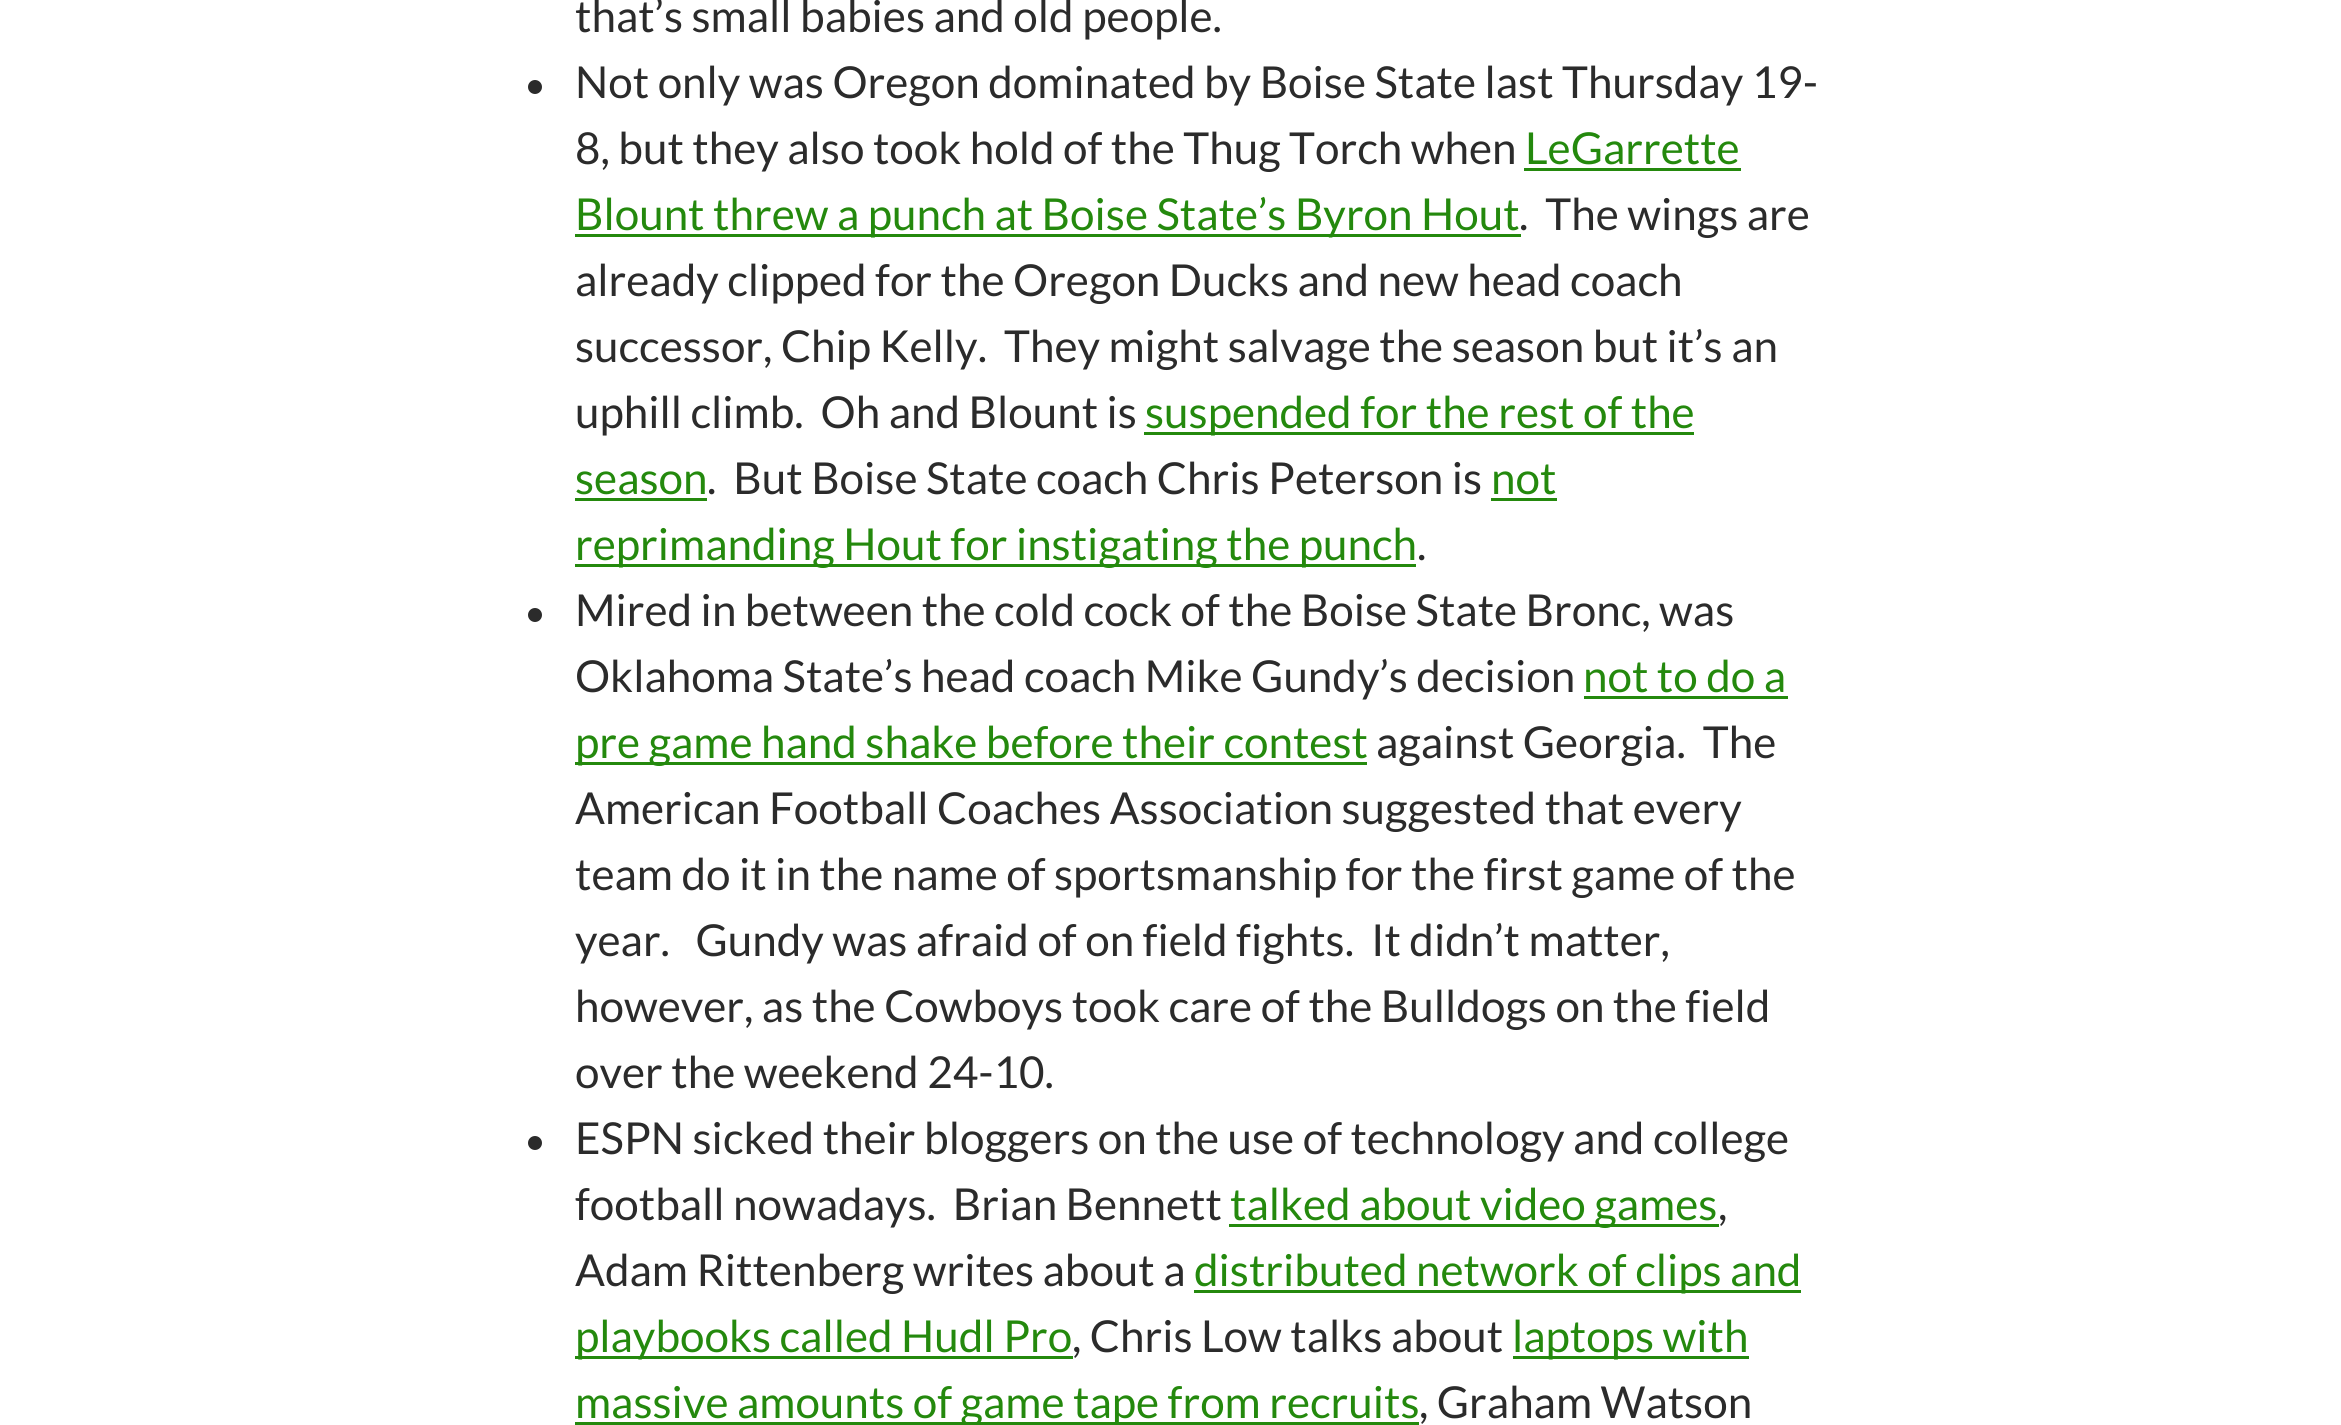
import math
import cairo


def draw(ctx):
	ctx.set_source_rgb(1, 1, 1)
	ctx.paint()
	ctx.select_font_face('Lato')
	ctx.set_font_size(44)
	ctx.set_source_rgb(0.169, 0.169, 0.169)
	ctx.move_to(575, 32)
	ctx.show_text('that’s small babies and old people.')
	ctx.new_path()
	ctx.arc(535, 87, 7, 0, 2 * math.pi)
	ctx.fill()
	ctx.move_to(575, 98)
	ctx.show_text('Not only was Oregon dominated by Boise State last Thursday 19-')
	ctx.move_to(575, 164)
	ctx.show_text('8, but they also took hold of the Thug Torch when')
	ctx.set_source_rgb(0.141, 0.537, 0.051)
	ctx.move_to(1525, 164)
	ctx.show_text('LeGarrette')
	ctx.rectangle(1524, 168, 217, 3)
	ctx.fill()
	ctx.rectangle(575, 234, 946, 3)
	ctx.fill()
	ctx.move_to(575, 230)
	ctx.show_text('Blount threw a punch at Boise State’s Byron Hout')
	ctx.set_source_rgb(0.169, 0.169, 0.169)
	for x, y, s in [
		(1519, 230, '.  The wings are'),
		(575, 296, 'already clipped for the Oregon Ducks and new head coach'),
		(575, 362, 'successor, Chip Kelly.  They might salvage the season but it’s an'),
		(575, 428, 'uphill climb.  Oh and Blount is'),
	]:
		ctx.move_to(x, y)
		ctx.show_text(s)
	ctx.set_source_rgb(0.141, 0.537, 0.051)
	ctx.rectangle(1144, 432, 550, 3)
	ctx.fill()
	ctx.move_to(1145, 428)
	ctx.show_text('suspended for the rest of the')
	ctx.move_to(575, 494)
	ctx.show_text('season')
	ctx.rectangle(575, 498, 132, 3)
	ctx.fill()
	ctx.set_source_rgb(0.169, 0.169, 0.169)
	ctx.move_to(707, 494)
	ctx.show_text('.  But Boise State coach Chris Peterson is')
	ctx.set_source_rgb(0.141, 0.537, 0.051)
	ctx.move_to(1491, 494)
	ctx.show_text('not')
	ctx.rectangle(1491, 498, 66, 3)
	ctx.fill()
	ctx.rectangle(575, 564, 841, 3)
	ctx.fill()
	ctx.move_to(575, 560)
	ctx.show_text('reprimanding Hout for instigating the punch')
	ctx.set_source_rgb(0.169, 0.169, 0.169)
	ctx.move_to(1417, 560)
	ctx.show_text('.')
	ctx.new_path()
	ctx.arc(535, 615, 7, 0, 2 * math.pi)
	ctx.fill()
	ctx.move_to(575, 626)
	ctx.show_text('Mired in between the cold cock of the Boise State Bronc, was')
	ctx.move_to(575, 692)
	ctx.show_text('Oklahoma State’s head coach Mike Gundy’s decision')
	ctx.set_source_rgb(0.141, 0.537, 0.051)
	ctx.move_to(1583, 692)
	ctx.show_text('not to do a')
	ctx.rectangle(1584, 696, 204, 3)
	ctx.fill()
	ctx.rectangle(575, 762, 792, 3)
	ctx.fill()
	ctx.move_to(575, 758)
	ctx.show_text('pre game hand shake before their contest')
	ctx.set_source_rgb(0.169, 0.169, 0.169)
	for x, y, s in [
		(1376, 758, 'against Georgia.  The'),
		(575, 824, 'American Football Coaches Association suggested that every'),
		(575, 890, 'team do it in the name of sportsmanship for the first game of the'),
		(575, 956, 'year.   Gundy was afraid of on field fights.  It didn’t matter,'),
		(575, 1022, 'however, as the Cowboys took care of the Bulldogs on the field'),
		(575, 1088, 'over the weekend 24-10.'),
	]:
		ctx.move_to(x, y)
		ctx.show_text(s)
	ctx.new_path()
	ctx.arc(535, 1143, 7, 0, 2 * math.pi)
	ctx.fill()
	ctx.move_to(575, 1154)
	ctx.show_text('ESPN sicked their bloggers on the use of technology and college')
	ctx.move_to(575, 1220)
	ctx.show_text('football nowadays.  Brian Bennett')
	ctx.set_source_rgb(0.141, 0.537, 0.051)
	ctx.rectangle(1229, 1224, 490, 3)
	ctx.fill()
	ctx.move_to(1230, 1220)
	ctx.show_text('talked about video games')
	ctx.set_source_rgb(0.169, 0.169, 0.169)
	ctx.move_to(1718, 1220)
	ctx.show_text(',')
	ctx.move_to(575, 1286)
	ctx.show_text('Adam Rittenberg writes about a')
	ctx.set_source_rgb(0.141, 0.537, 0.051)
	ctx.rectangle(1194, 1290, 607, 3)
	ctx.fill()
	ctx.move_to(1194, 1286)
	ctx.show_text('distributed network of clips and')
	ctx.rectangle(575, 1356, 498, 3)
	ctx.fill()
	ctx.move_to(575, 1352)
	ctx.show_text('playbooks called Hudl Pro')
	ctx.set_source_rgb(0.169, 0.169, 0.169)
	ctx.move_to(1072, 1352)
	ctx.show_text(', Chris Low talks about')
	ctx.set_source_rgb(0.141, 0.537, 0.051)
	ctx.rectangle(1513, 1356, 236, 3)
	ctx.fill()
	ctx.move_to(1512, 1352)
	ctx.show_text('laptops with')
	ctx.rectangle(575, 1422, 844, 3)
	ctx.fill()
	ctx.move_to(575, 1418)
	ctx.show_text('massive amounts of game tape from recruits')
	ctx.set_source_rgb(0.169, 0.169, 0.169)
	ctx.move_to(1419, 1418)
	ctx.show_text(', Graham Watson')


surface = cairo.ImageSurface(cairo.FORMAT_RGB24, 2341, 1425)
ctx = cairo.Context(surface)
options = cairo.FontOptions()
options.set_hint_metrics(cairo.HINT_METRICS_OFF)
options.set_hint_style(cairo.HINT_STYLE_NONE)
ctx.set_font_options(options)
ctx.set_miter_limit(4)
draw(ctx)
surface.write_to_png('image.png')
